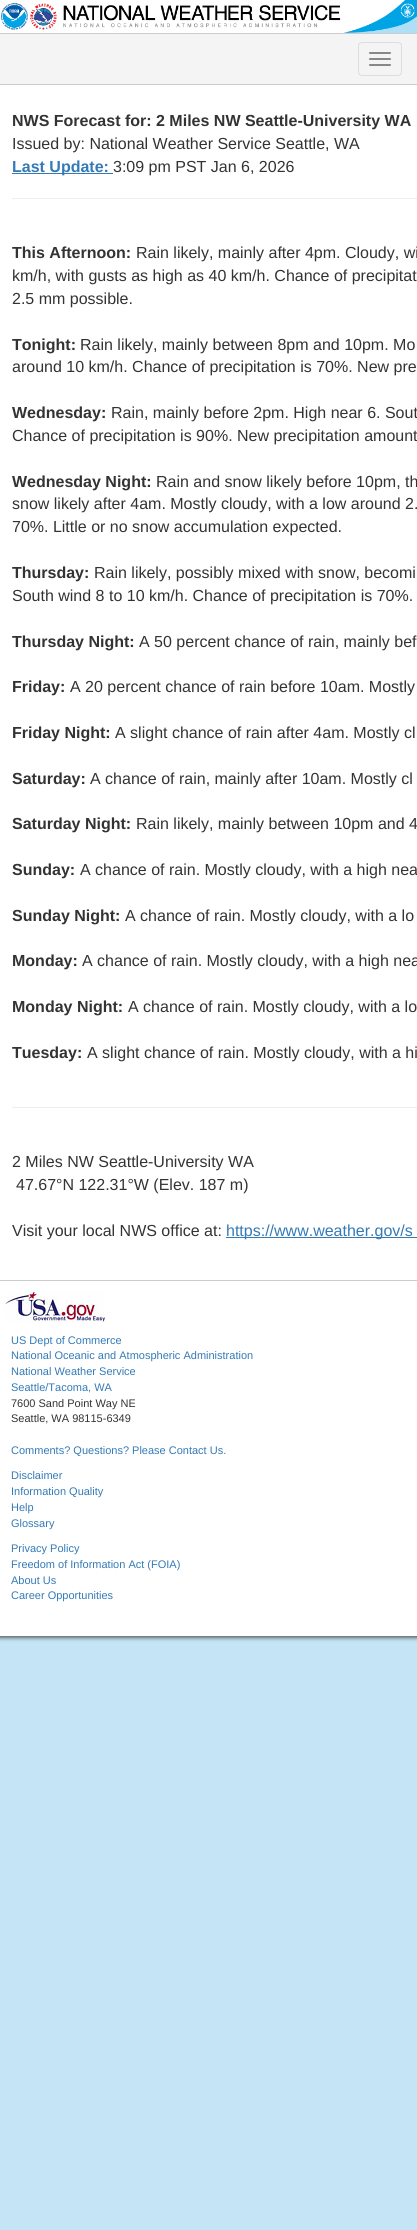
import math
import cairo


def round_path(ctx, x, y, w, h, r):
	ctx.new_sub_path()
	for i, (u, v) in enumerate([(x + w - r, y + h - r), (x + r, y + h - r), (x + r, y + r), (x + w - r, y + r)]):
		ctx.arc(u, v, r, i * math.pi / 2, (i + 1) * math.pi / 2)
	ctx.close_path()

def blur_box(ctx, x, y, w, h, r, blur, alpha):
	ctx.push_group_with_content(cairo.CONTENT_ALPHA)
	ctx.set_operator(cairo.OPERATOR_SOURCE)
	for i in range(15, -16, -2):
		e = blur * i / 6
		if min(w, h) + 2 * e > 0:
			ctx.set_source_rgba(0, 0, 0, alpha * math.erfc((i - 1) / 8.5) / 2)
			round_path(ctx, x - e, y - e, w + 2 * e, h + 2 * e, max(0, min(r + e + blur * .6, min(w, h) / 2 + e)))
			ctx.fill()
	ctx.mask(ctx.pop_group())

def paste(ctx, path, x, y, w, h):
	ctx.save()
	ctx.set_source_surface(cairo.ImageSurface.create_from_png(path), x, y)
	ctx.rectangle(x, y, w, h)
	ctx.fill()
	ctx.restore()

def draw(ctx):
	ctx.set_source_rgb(0.773, 0.898, 0.961)
	ctx.paint()
	ctx.set_source_rgb(0.2, 0.2, 0.2)
	blur_box(ctx, -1, -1, 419, 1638, 0, 2.5, 1)
	ctx.set_source_rgb(1, 1, 1)
	ctx.rectangle(0, 0, 417, 1636)
	ctx.fill()
	paste(ctx, 'media/1.png', 0, 2, 28, 28)
	paste(ctx, 'media/2.png', 30, 3, 311, 27)
	paste(ctx, 'media/3.png', 343, 0, 74, 33)
	ctx.set_source_rgb(0.957, 0.957, 0.957)
	ctx.rectangle(0, 34, 417, 50)
	ctx.fill()
	ctx.set_source_rgb(0.8, 0.8, 0.8)
	ctx.rectangle(0, 33, 417, 1)
	ctx.rectangle(0, 84, 417, 1)
	ctx.fill()
	round_path(ctx, 358.5, 42.5, 43, 33, 3.5)
	ctx.set_source_rgb(0.867, 0.867, 0.867)
	ctx.set_line_width(1)
	ctx.stroke()
	ctx.set_source_rgb(0.533, 0.533, 0.533)
	round_path(ctx, 369, 52, 22, 2, 1)
	ctx.fill()
	round_path(ctx, 369, 58, 22, 2, 1)
	ctx.fill()
	round_path(ctx, 369, 64, 22, 2, 1)
	ctx.fill()
	ctx.select_font_face('Liberation Sans', cairo.FONT_SLANT_NORMAL, cairo.FONT_WEIGHT_BOLD)
	ctx.set_font_size(16)
	ctx.set_source_rgb(0.2, 0.2, 0.2)
	ctx.move_to(12, 126)
	ctx.show_text('NWS Forecast for: 2 Miles NW Seattle-University WA')
	ctx.select_font_face('Liberation Sans')
	ctx.move_to(12, 149)
	ctx.show_text('Issued by: National Weather Service Seattle, WA')
	ctx.set_source_rgb(0.2, 0.478, 0.718)
	ctx.rectangle(12, 173, 101, 1)
	ctx.fill()
	ctx.select_font_face('Liberation Sans', cairo.FONT_SLANT_NORMAL, cairo.FONT_WEIGHT_BOLD)
	ctx.move_to(12, 172)
	ctx.show_text('Last Update:')
	ctx.select_font_face('Liberation Sans')
	ctx.set_source_rgb(0.2, 0.2, 0.2)
	ctx.move_to(113, 172)
	ctx.show_text('3:09 pm PST Jan 6, 2026')
	ctx.set_source_rgb(0.933, 0.933, 0.933)
	ctx.rectangle(12, 198, 405, 1)
	ctx.fill()
	ctx.select_font_face('Liberation Sans', cairo.FONT_SLANT_NORMAL, cairo.FONT_WEIGHT_BOLD)
	ctx.set_source_rgb(0.2, 0.2, 0.2)
	ctx.move_to(12, 258)
	ctx.show_text('This Afternoon:')
	ctx.select_font_face('Liberation Sans')
	for x, y, s in [
		(136, 258, 'Rain likely, mainly after 4pm. Cloudy, wi'),
		(12, 281, 'km/h, with gusts as high as 40 km/h. Chance of precipitat'),
		(12, 304, '2.5 mm possible.'),
	]:
		ctx.move_to(x, y)
		ctx.show_text(s)
	ctx.select_font_face('Liberation Sans', cairo.FONT_SLANT_NORMAL, cairo.FONT_WEIGHT_BOLD)
	ctx.move_to(12, 350)
	ctx.show_text('Tonight:')
	ctx.select_font_face('Liberation Sans')
	ctx.move_to(80, 350)
	ctx.show_text('Rain likely, mainly between 8pm and 10pm. Mo')
	ctx.move_to(12, 372)
	ctx.show_text('around 10 km/h. Chance of precipitation is 70%. New pre')
	ctx.select_font_face('Liberation Sans', cairo.FONT_SLANT_NORMAL, cairo.FONT_WEIGHT_BOLD)
	ctx.move_to(12, 418)
	ctx.show_text('Wednesday:')
	ctx.select_font_face('Liberation Sans')
	ctx.move_to(111, 418)
	ctx.show_text('Rain, mainly before 2pm. High near 6. Sout')
	ctx.move_to(12, 441)
	ctx.show_text('Chance of precipitation is 90%. New precipitation amount')
	ctx.select_font_face('Liberation Sans', cairo.FONT_SLANT_NORMAL, cairo.FONT_WEIGHT_BOLD)
	ctx.move_to(12, 487)
	ctx.show_text('Wednesday Night:')
	ctx.select_font_face('Liberation Sans')
	for x, y, s in [
		(156, 487, 'Rain and snow likely before 10pm, th'),
		(12, 509, 'snow likely after 4am. Mostly cloudy, with a low around 2.'),
		(12, 532, '70%. Little or no snow accumulation expected.'),
	]:
		ctx.move_to(x, y)
		ctx.show_text(s)
	ctx.select_font_face('Liberation Sans', cairo.FONT_SLANT_NORMAL, cairo.FONT_WEIGHT_BOLD)
	ctx.move_to(12, 578)
	ctx.show_text('Thursday:')
	ctx.select_font_face('Liberation Sans')
	ctx.move_to(94, 578)
	ctx.show_text('Rain likely, possibly mixed with snow, becomi')
	ctx.move_to(12, 601)
	ctx.show_text('South wind 8 to 10 km/h. Chance of precipitation is 70%.')
	ctx.select_font_face('Liberation Sans', cairo.FONT_SLANT_NORMAL, cairo.FONT_WEIGHT_BOLD)
	ctx.move_to(12, 647)
	ctx.show_text('Thursday Night:')
	ctx.select_font_face('Liberation Sans')
	ctx.move_to(139, 647)
	ctx.show_text('A 50 percent chance of rain, mainly bef')
	ctx.select_font_face('Liberation Sans', cairo.FONT_SLANT_NORMAL, cairo.FONT_WEIGHT_BOLD)
	ctx.move_to(12, 692)
	ctx.show_text('Friday:')
	ctx.select_font_face('Liberation Sans')
	ctx.move_to(70, 692)
	ctx.show_text('A 20 percent chance of rain before 10am. Mostly')
	ctx.select_font_face('Liberation Sans', cairo.FONT_SLANT_NORMAL, cairo.FONT_WEIGHT_BOLD)
	ctx.move_to(12, 738)
	ctx.show_text('Friday Night:')
	ctx.select_font_face('Liberation Sans')
	ctx.move_to(115, 738)
	ctx.show_text('A slight chance of rain after 4am. Mostly cl')
	ctx.select_font_face('Liberation Sans', cairo.FONT_SLANT_NORMAL, cairo.FONT_WEIGHT_BOLD)
	ctx.move_to(12, 784)
	ctx.show_text('Saturday:')
	ctx.select_font_face('Liberation Sans')
	ctx.move_to(90, 784)
	ctx.show_text('A chance of rain, mainly after 10am. Mostly cl')
	ctx.select_font_face('Liberation Sans', cairo.FONT_SLANT_NORMAL, cairo.FONT_WEIGHT_BOLD)
	ctx.move_to(12, 829)
	ctx.show_text('Saturday Night:')
	ctx.select_font_face('Liberation Sans')
	ctx.move_to(136, 829)
	ctx.show_text('Rain likely, mainly between 10pm and 4')
	ctx.select_font_face('Liberation Sans', cairo.FONT_SLANT_NORMAL, cairo.FONT_WEIGHT_BOLD)
	ctx.move_to(12, 875)
	ctx.show_text('Sunday:')
	ctx.select_font_face('Liberation Sans')
	ctx.move_to(80, 875)
	ctx.show_text('A chance of rain. Mostly cloudy, with a high nea')
	ctx.select_font_face('Liberation Sans', cairo.FONT_SLANT_NORMAL, cairo.FONT_WEIGHT_BOLD)
	ctx.move_to(12, 921)
	ctx.show_text('Sunday Night:')
	ctx.select_font_face('Liberation Sans')
	ctx.move_to(125, 921)
	ctx.show_text('A chance of rain. Mostly cloudy, with a lo')
	ctx.select_font_face('Liberation Sans', cairo.FONT_SLANT_NORMAL, cairo.FONT_WEIGHT_BOLD)
	ctx.move_to(12, 966)
	ctx.show_text('Monday:')
	ctx.select_font_face('Liberation Sans')
	ctx.move_to(82, 966)
	ctx.show_text('A chance of rain. Mostly cloudy, with a high nea')
	ctx.select_font_face('Liberation Sans', cairo.FONT_SLANT_NORMAL, cairo.FONT_WEIGHT_BOLD)
	ctx.move_to(12, 1012)
	ctx.show_text('Monday Night:')
	ctx.select_font_face('Liberation Sans')
	ctx.move_to(128, 1012)
	ctx.show_text('A chance of rain. Mostly cloudy, with a lo')
	ctx.select_font_face('Liberation Sans', cairo.FONT_SLANT_NORMAL, cairo.FONT_WEIGHT_BOLD)
	ctx.move_to(12, 1058)
	ctx.show_text('Tuesday:')
	ctx.select_font_face('Liberation Sans')
	ctx.move_to(87, 1058)
	ctx.show_text('A slight chance of rain. Mostly cloudy, with a hi')
	ctx.set_source_rgb(0.933, 0.933, 0.933)
	ctx.rectangle(12, 1107, 405, 1)
	ctx.fill()
	ctx.set_source_rgb(0.2, 0.2, 0.2)
	for x, y, s in [
		(12, 1167, '2 Miles NW Seattle-University WA'),
		(16, 1190, '47.67°N 122.31°W (Elev. 187 m)'),
		(12, 1236, 'Visit your local NWS office at:'),
	]:
		ctx.move_to(x, y)
		ctx.show_text(s)
	ctx.set_source_rgb(0.2, 0.478, 0.718)
	ctx.rectangle(226, 1237, 191, 1)
	ctx.fill()
	ctx.move_to(226, 1236)
	ctx.show_text('https://www.weather.gov/s')
	ctx.set_source_rgb(0.8, 0.8, 0.8)
	ctx.rectangle(0, 1280, 417, 1)
	ctx.fill()
	paste(ctx, 'media/4.png', 5, 1292, 100, 30)
	ctx.set_font_size(11)
	ctx.set_source_rgb(0.2, 0.478, 0.718)
	for x, y, s in [
		(11, 1344, 'US Dept of Commerce'),
		(11, 1359, 'National Oceanic and Atmospheric Administration'),
		(11, 1375, 'National Weather Service'),
		(11, 1391, 'Seattle/Tacoma, WA'),
	]:
		ctx.move_to(x, y)
		ctx.show_text(s)
	ctx.set_source_rgb(0.2, 0.2, 0.2)
	ctx.move_to(11, 1407)
	ctx.show_text('7600 Sand Point Way NE')
	ctx.move_to(11, 1422)
	ctx.show_text('Seattle, WA 98115-6349')
	ctx.set_source_rgb(0.2, 0.478, 0.718)
	for x, y, s in [
		(11, 1454, 'Comments? Questions? Please Contact Us.'),
		(11, 1479, 'Disclaimer'),
		(11, 1495, 'Information Quality'),
		(11, 1511, 'Help'),
		(11, 1527, 'Glossary'),
		(11, 1552, 'Privacy Policy'),
		(11, 1568, 'Freedom of Information Act (FOIA)'),
		(11, 1584, 'About Us'),
		(11, 1599, 'Career Opportunities'),
	]:
		ctx.move_to(x, y)
		ctx.show_text(s)


surface = cairo.ImageSurface(cairo.FORMAT_RGB24, 417, 2230)
ctx = cairo.Context(surface)
options = cairo.FontOptions()
options.set_hint_metrics(cairo.HINT_METRICS_OFF)
options.set_hint_style(cairo.HINT_STYLE_NONE)
ctx.set_font_options(options)
ctx.set_miter_limit(4)
draw(ctx)
surface.write_to_png('image.png')
